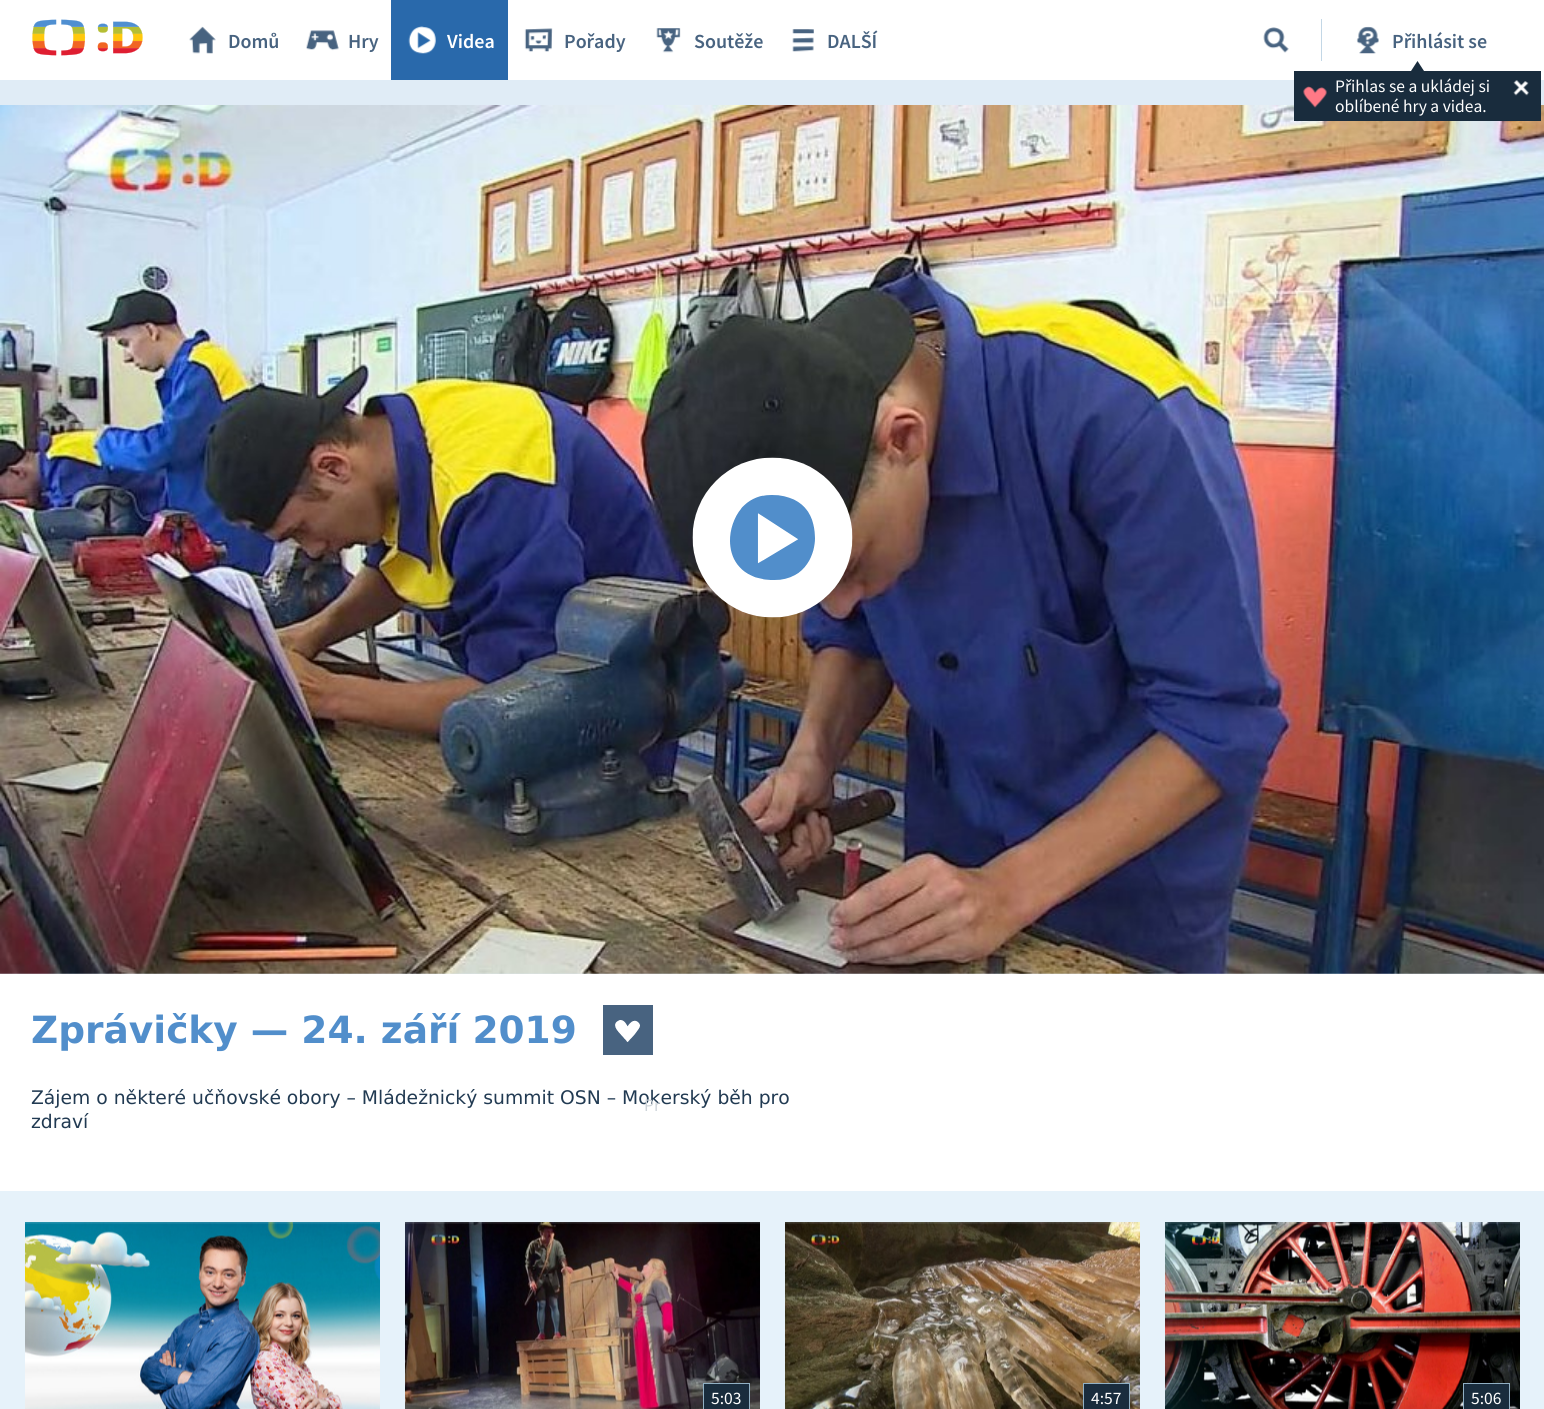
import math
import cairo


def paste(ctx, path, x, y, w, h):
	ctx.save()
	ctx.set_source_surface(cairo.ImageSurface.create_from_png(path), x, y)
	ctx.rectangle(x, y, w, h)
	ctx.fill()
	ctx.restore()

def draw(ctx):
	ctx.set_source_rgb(0.878, 0.925, 0.961)
	ctx.paint()
	ctx.set_source_rgb(1, 1, 1)
	ctx.rectangle(0, 0, 1544, 80)
	ctx.fill()
	paste(ctx, 'media/1.png', 32, 19, 111, 37)
	paste(ctx, 'media/2.png', 189, 26, 27, 28)
	ctx.select_font_face('Source Sans Pro SemiBold')
	ctx.set_font_size(20)
	ctx.set_source_rgb(0.282, 0.388, 0.502)
	ctx.move_to(228, 48)
	ctx.show_text('Domů')
	paste(ctx, 'media/3.png', 306, 30, 33, 21)
	ctx.move_to(348, 48)
	ctx.show_text('Hry')
	ctx.set_source_rgb(0.161, 0.412, 0.671)
	ctx.rectangle(391, 0, 117, 80)
	ctx.fill()
	paste(ctx, 'media/4.png', 408, 26, 28, 28)
	ctx.set_source_rgb(1, 1, 1)
	ctx.move_to(447, 48)
	ctx.show_text('Videa')
	paste(ctx, 'media/5.png', 524, 28, 29, 24)
	ctx.set_source_rgb(0.282, 0.388, 0.502)
	ctx.move_to(564, 48)
	ctx.show_text('Pořady')
	paste(ctx, 'media/6.png', 656, 28, 25, 25)
	ctx.move_to(694, 48)
	ctx.show_text('Soutěže')
	paste(ctx, 'media/7.png', 792, 29, 22, 23)
	ctx.move_to(827, 48)
	ctx.show_text('DALŠÍ')
	paste(ctx, 'media/8.png', 1263, 27, 26, 26)
	ctx.set_source_rgb(0.765, 0.843, 0.902)
	ctx.rectangle(1321, 19, 1, 42)
	ctx.fill()
	paste(ctx, 'media/9.png', 1356, 26, 23, 28)
	ctx.set_source_rgb(0.282, 0.388, 0.502)
	ctx.move_to(1392, 48)
	ctx.show_text('Přihlásit se')
	paste(ctx, 'media/12.png', 0, 105, 1544, 869)
	ctx.set_source_rgb(0.098, 0.173, 0.239)
	ctx.rectangle(1294, 71, 247, 50)
	ctx.fill()
	ctx.new_path()
	ctx.move_to(1424, 71)
	ctx.line_to(1411, 71)
	ctx.line_to(1417.5, 61)
	ctx.close_path()
	ctx.fill()
	paste(ctx, 'media/10.png', 1303, 86, 24, 22)
	ctx.select_font_face('Source Sans Pro')
	ctx.set_font_size(17.5)
	ctx.set_source_rgb(1, 1, 1)
	ctx.move_to(1335, 92)
	ctx.show_text('Přihlas se a ukládej si')
	ctx.move_to(1335, 112)
	ctx.show_text('oblíbené hry a videa.')
	paste(ctx, 'media/11.png', 1513, 80, 16, 16)
	paste(ctx, 'media/13.png', 692, 457, 161, 161)
	ctx.rectangle(0, 974, 1544, 217)
	ctx.fill()
	ctx.select_font_face('DejaVu Sans', cairo.FONT_SLANT_NORMAL, cairo.FONT_WEIGHT_BOLD)
	ctx.set_font_size(37.5)
	ctx.set_source_rgb(0.318, 0.557, 0.796)
	ctx.move_to(31, 1043)
	ctx.show_text('Zprávičky — 24. září 2019')
	ctx.set_source_rgb(0.282, 0.388, 0.502)
	ctx.rectangle(603, 1005, 50, 50)
	ctx.fill()
	paste(ctx, 'media/14.png', 615, 1020, 25, 22)
	ctx.select_font_face('DejaVu Sans')
	ctx.set_font_size(18.75)
	ctx.set_source_rgb(0.129, 0.227, 0.322)
	ctx.move_to(31, 1104)
	ctx.show_text('Zájem o některé učňovské obory – Mládežnický summit OSN – Mokerský běh pro')
	ctx.select_font_face('Source Sans Pro')
	ctx.set_font_size(17.5)
	ctx.set_source_rgb(0.808, 0.831, 0.851)
	ctx.move_to(644, 1111)
	ctx.show_text('Pr')
	ctx.select_font_face('DejaVu Sans')
	ctx.set_font_size(18.75)
	ctx.set_source_rgb(0.129, 0.227, 0.322)
	ctx.move_to(31, 1128)
	ctx.show_text('zdraví')
	ctx.set_source_rgb(0.902, 0.949, 0.98)
	ctx.rectangle(0, 1191, 1544, 218)
	ctx.fill()
	paste(ctx, 'media/15.png', 25, 1222, 355, 187)
	paste(ctx, 'media/16.png', 405, 1222, 355, 187)
	ctx.set_source_rgb(0.098, 0.173, 0.239)
	ctx.rectangle(703.5, 1383.5, 46, 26)
	ctx.fill_preserve()
	ctx.set_source_rgb(0.569, 0.69, 0.769)
	ctx.set_line_width(1)
	ctx.stroke()
	ctx.select_font_face('Source Sans Pro')
	ctx.set_font_size(17.5)
	ctx.set_source_rgb(1, 1, 1)
	ctx.move_to(711, 1404)
	ctx.show_text('5:03')
	paste(ctx, 'media/17.png', 785, 1222, 355, 187)
	ctx.set_source_rgb(0.098, 0.173, 0.239)
	ctx.rectangle(1083.5, 1383.5, 46, 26)
	ctx.fill_preserve()
	ctx.set_source_rgb(0.569, 0.69, 0.769)
	ctx.stroke()
	ctx.set_source_rgb(1, 1, 1)
	ctx.move_to(1091, 1404)
	ctx.show_text('4:57')
	paste(ctx, 'media/18.png', 1165, 1222, 355, 187)
	ctx.set_source_rgb(0.098, 0.173, 0.239)
	ctx.rectangle(1463.5, 1383.5, 46, 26)
	ctx.fill_preserve()
	ctx.set_source_rgb(0.569, 0.69, 0.769)
	ctx.stroke()
	ctx.set_source_rgb(1, 1, 1)
	ctx.move_to(1471, 1404)
	ctx.show_text('5:06')


surface = cairo.ImageSurface(cairo.FORMAT_RGB24, 1544, 1409)
ctx = cairo.Context(surface)
options = cairo.FontOptions()
options.set_hint_metrics(cairo.HINT_METRICS_OFF)
options.set_hint_style(cairo.HINT_STYLE_NONE)
ctx.set_font_options(options)
ctx.set_miter_limit(4)
draw(ctx)
surface.write_to_png('image.png')
